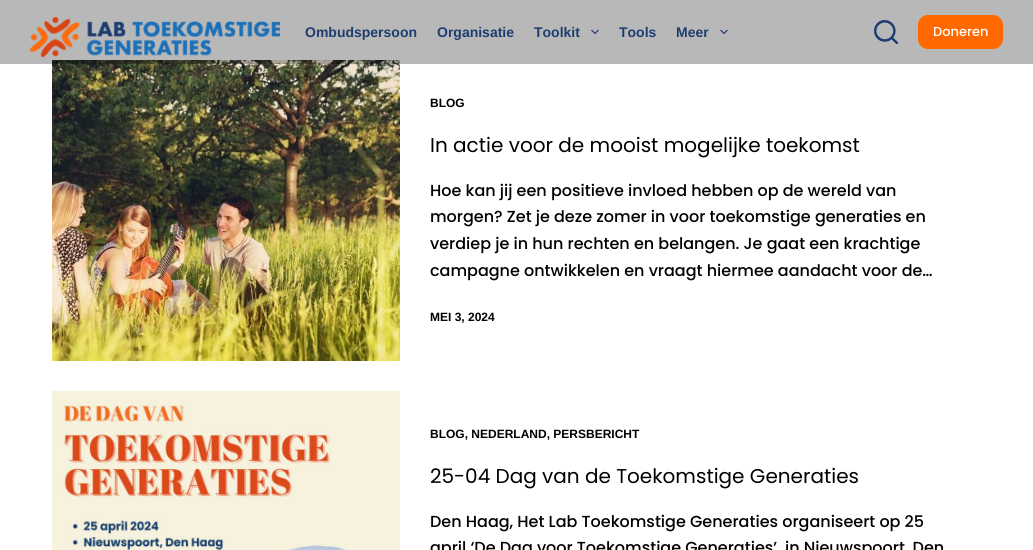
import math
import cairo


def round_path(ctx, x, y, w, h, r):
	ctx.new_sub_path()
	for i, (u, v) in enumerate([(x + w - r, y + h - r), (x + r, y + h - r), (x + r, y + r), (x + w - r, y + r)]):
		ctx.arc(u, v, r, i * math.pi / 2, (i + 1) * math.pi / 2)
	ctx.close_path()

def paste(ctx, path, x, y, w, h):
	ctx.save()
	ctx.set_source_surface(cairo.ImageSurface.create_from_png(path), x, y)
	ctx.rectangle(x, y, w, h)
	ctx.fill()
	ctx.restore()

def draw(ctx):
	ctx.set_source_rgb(1, 1, 1)
	ctx.paint()
	paste(ctx, 'media/4.png', 52, 60, 348, 301)
	ctx.set_source_rgba(0, 0, 0, 0.28)
	ctx.rectangle(0, 0, 1033, 64)
	ctx.fill()
	paste(ctx, 'media/1.png', 30, 17, 250, 40)
	ctx.select_font_face('Liberation Sans', cairo.FONT_SLANT_NORMAL, cairo.FONT_WEIGHT_BOLD)
	ctx.set_font_size(14)
	ctx.set_source_rgb(0.118, 0.239, 0.435)
	for x, y, s in [
		(305, 37, 'Ombudspersoon'),
		(437, 37, 'Organisatie'),
		(534, 37, 'Toolkit'),
	]:
		ctx.move_to(x, y)
		ctx.show_text(s)
	paste(ctx, 'media/2.png', 591, 29, 8, 6)
	ctx.move_to(619, 37)
	ctx.show_text('Tools')
	ctx.move_to(676, 37)
	ctx.show_text('Meer')
	paste(ctx, 'media/2.png', 720, 29, 8, 6)
	paste(ctx, 'media/3.png', 874, 20, 24, 24)
	ctx.set_source_rgb(1, 0.412, 0)
	round_path(ctx, 918, 15, 85, 34, 10)
	ctx.fill()
	ctx.select_font_face('Poppins Medium')
	ctx.set_font_size(13)
	ctx.set_source_rgb(1, 1, 1)
	ctx.move_to(933, 36)
	ctx.show_text('Doneren')
	ctx.select_font_face('Liberation Sans', cairo.FONT_SLANT_NORMAL, cairo.FONT_WEIGHT_BOLD)
	ctx.set_font_size(12)
	ctx.set_source_rgb(0, 0, 0)
	ctx.move_to(430, 107)
	ctx.show_text('BLOG')
	ctx.select_font_face('Poppins')
	ctx.set_font_size(20)
	ctx.move_to(430, 152)
	ctx.show_text('In actie voor de mooist mogelijke toekomst')
	ctx.select_font_face('Poppins Medium')
	ctx.set_font_size(16)
	for x, y, s in [
		(430, 196, 'Hoe kan jij een positieve invloed hebben op de wereld van'),
		(430, 222, 'morgen? Zet je deze zomer in voor toekomstige generaties en'),
		(430, 249, 'verdiep je in hun rechten en belangen. Je gaat een krachtige'),
		(430, 276, 'campagne ontwikkelen en vraagt hiermee aandacht voor de…'),
	]:
		ctx.move_to(x, y)
		ctx.show_text(s)
	ctx.select_font_face('Liberation Sans', cairo.FONT_SLANT_NORMAL, cairo.FONT_WEIGHT_BOLD)
	ctx.set_font_size(12)
	ctx.move_to(430, 321)
	ctx.show_text('MEI 3, 2024')
	paste(ctx, 'media/5.png', 52, 391, 348, 159)
	ctx.move_to(430, 438)
	ctx.show_text('BLOG, NEDERLAND, PERSBERICHT')
	ctx.select_font_face('Poppins')
	ctx.set_font_size(20)
	ctx.move_to(430, 483)
	ctx.show_text('25-04 Dag van de Toekomstige Generaties')
	ctx.select_font_face('Poppins Medium')
	ctx.set_font_size(16)
	ctx.move_to(430, 527)
	ctx.show_text('Den Haag, Het Lab Toekomstige Generaties organiseert op 25')
	ctx.move_to(430, 553)
	ctx.show_text('april ‘De Dag voor Toekomstige Generaties’, in Nieuwspoort, Den')


surface = cairo.ImageSurface(cairo.FORMAT_RGB24, 1033, 550)
ctx = cairo.Context(surface)
options = cairo.FontOptions()
options.set_hint_metrics(cairo.HINT_METRICS_OFF)
options.set_hint_style(cairo.HINT_STYLE_NONE)
ctx.set_font_options(options)
ctx.set_miter_limit(4)
draw(ctx)
surface.write_to_png('image.png')
